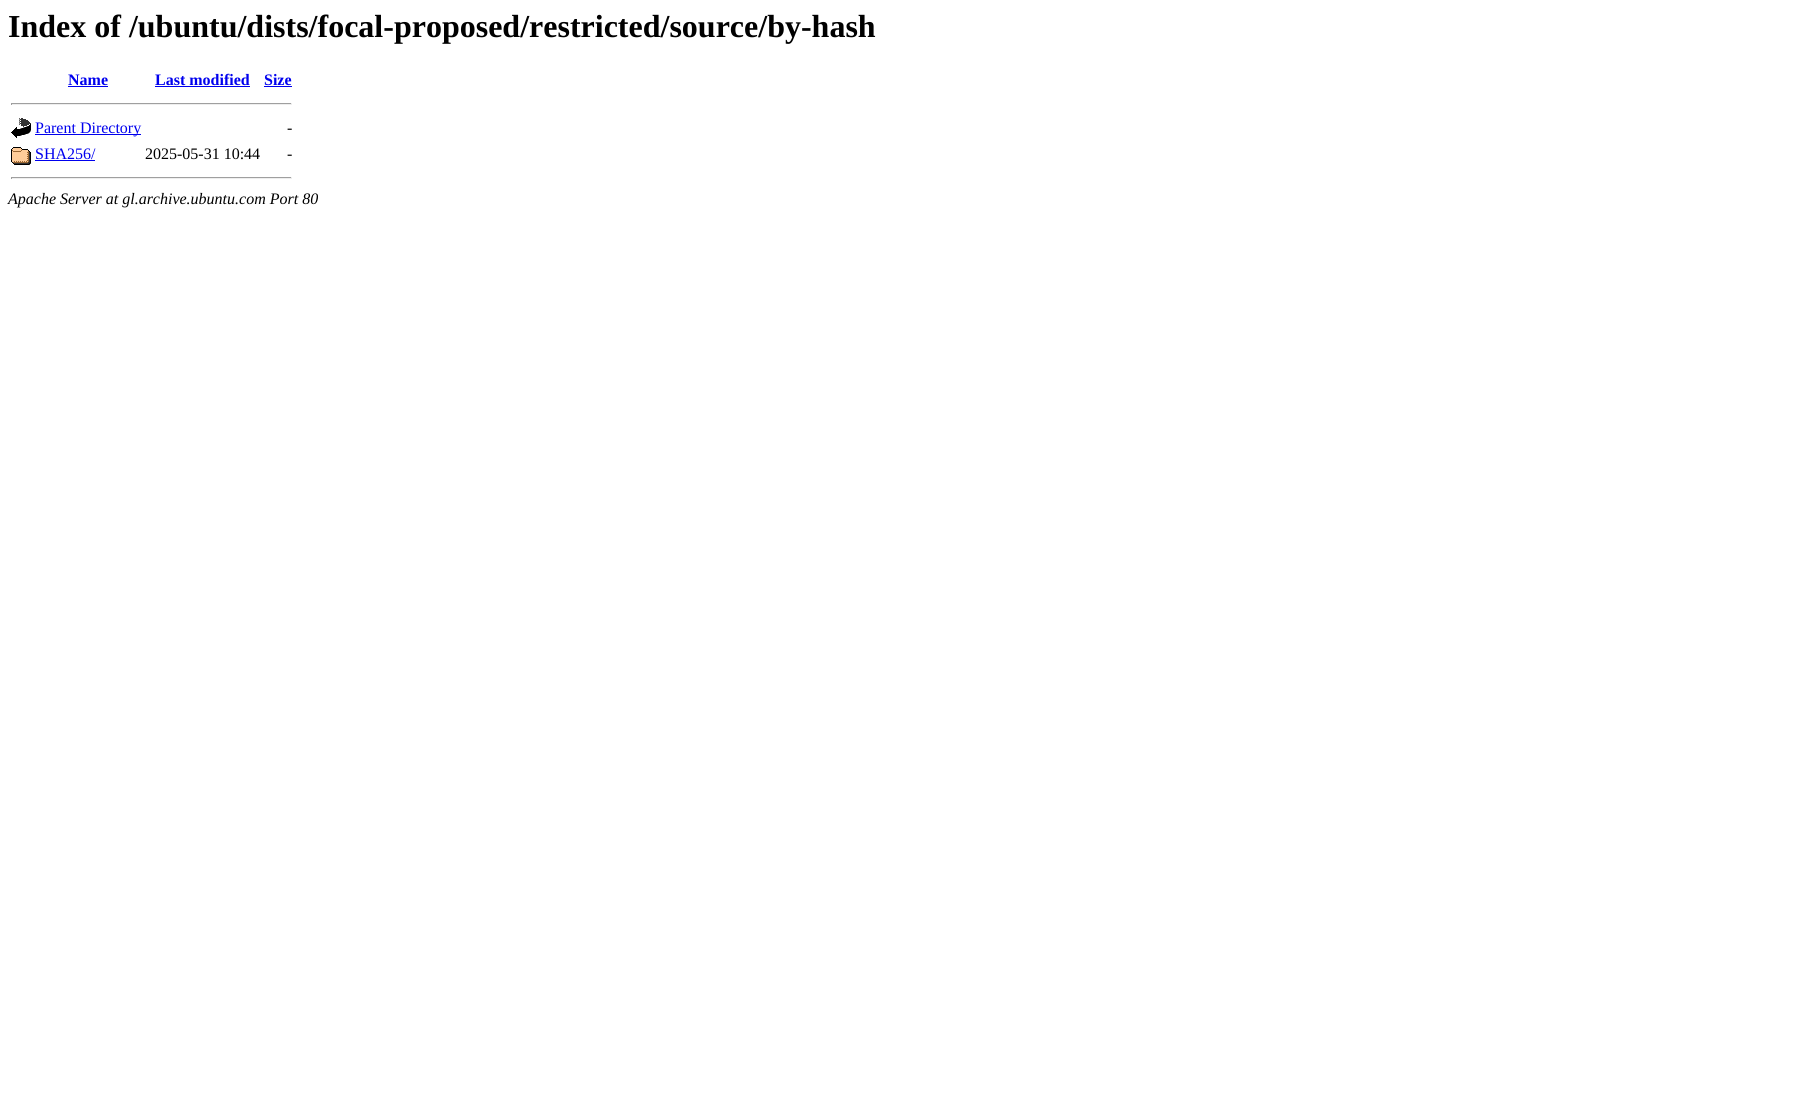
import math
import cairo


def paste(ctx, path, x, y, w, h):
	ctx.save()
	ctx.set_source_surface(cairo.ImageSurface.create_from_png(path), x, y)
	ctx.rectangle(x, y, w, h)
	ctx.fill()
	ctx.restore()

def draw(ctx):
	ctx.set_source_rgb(1, 1, 1)
	ctx.paint()
	ctx.select_font_face('Liberation Serif', cairo.FONT_SLANT_NORMAL, cairo.FONT_WEIGHT_BOLD)
	ctx.set_font_size(32)
	ctx.set_source_rgb(0, 0, 0)
	ctx.move_to(8, 37)
	ctx.show_text('Index of /ubuntu/dists/focal-proposed/restricted/source/by-hash')
	ctx.set_font_size(16)
	ctx.set_source_rgb(0, 0, 0.933)
	ctx.move_to(68, 85)
	ctx.show_text('Name')
	ctx.rectangle(68, 86, 40, 1)
	ctx.fill()
	ctx.move_to(155, 85)
	ctx.show_text('Last modified')
	ctx.rectangle(155, 86, 95, 1)
	ctx.fill()
	ctx.move_to(264, 85)
	ctx.show_text('Size')
	ctx.rectangle(264, 86, 28, 1)
	ctx.fill()
	ctx.set_source_rgb(0.624, 0.624, 0.624)
	ctx.rectangle(11, 103, 281, 1)
	ctx.fill()
	ctx.set_source_rgb(0.933, 0.933, 0.933)
	ctx.rectangle(291, 103, 1, 2)
	ctx.rectangle(11, 104, 281, 1)
	ctx.fill()
	ctx.set_source_rgb(0.624, 0.624, 0.624)
	ctx.rectangle(11, 103, 1, 2)
	ctx.fill()
	paste(ctx, 'media/1.png', 11, 118, 20, 20)
	ctx.set_source_rgb(0, 0, 0.933)
	ctx.rectangle(35, 134, 106, 1)
	ctx.fill()
	ctx.select_font_face('Liberation Serif')
	ctx.move_to(35, 133)
	ctx.show_text('Parent Directory')
	ctx.set_source_rgb(0, 0, 0)
	ctx.move_to(287, 133)
	ctx.show_text('-')
	paste(ctx, 'media/2.png', 11, 147, 20, 18)
	ctx.set_source_rgb(0, 0, 0.933)
	ctx.move_to(35, 159)
	ctx.show_text('SHA256/')
	ctx.rectangle(35, 160, 60, 1)
	ctx.fill()
	ctx.set_source_rgb(0, 0, 0)
	ctx.move_to(145, 159)
	ctx.show_text('2025-05-31 10:44')
	ctx.move_to(287, 159)
	ctx.show_text('-')
	ctx.set_source_rgb(0.624, 0.624, 0.624)
	ctx.rectangle(11, 177, 281, 1)
	ctx.fill()
	ctx.set_source_rgb(0.933, 0.933, 0.933)
	ctx.rectangle(291, 177, 1, 2)
	ctx.rectangle(11, 178, 281, 1)
	ctx.fill()
	ctx.set_source_rgb(0.624, 0.624, 0.624)
	ctx.rectangle(11, 177, 1, 2)
	ctx.fill()
	ctx.select_font_face('Liberation Serif', cairo.FONT_SLANT_ITALIC)
	ctx.set_source_rgb(0, 0, 0)
	ctx.move_to(8, 204)
	ctx.show_text('Apache Server at gl.archive.ubuntu.com Port 80')


surface = cairo.ImageSurface(cairo.FORMAT_RGB24, 1793, 1113)
ctx = cairo.Context(surface)
options = cairo.FontOptions()
options.set_hint_metrics(cairo.HINT_METRICS_OFF)
options.set_hint_style(cairo.HINT_STYLE_NONE)
ctx.set_font_options(options)
ctx.set_miter_limit(4)
draw(ctx)
surface.write_to_png('image.png')
